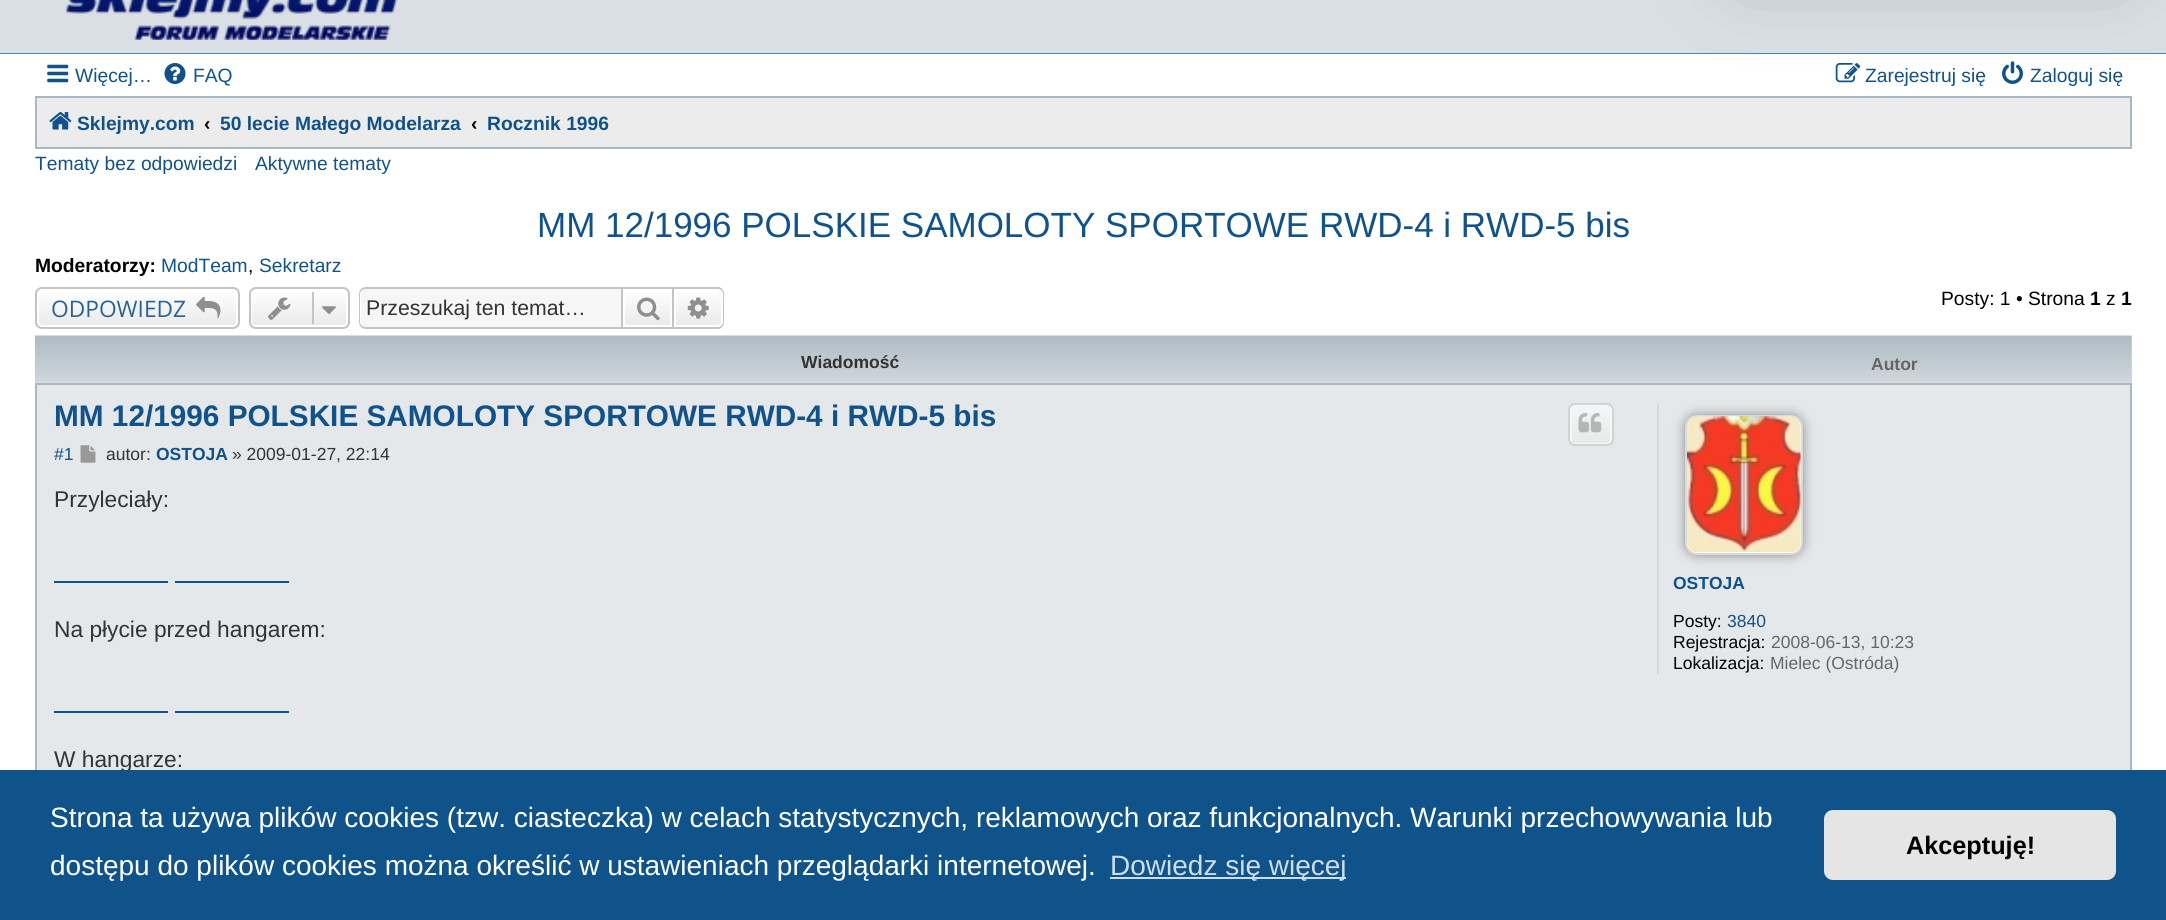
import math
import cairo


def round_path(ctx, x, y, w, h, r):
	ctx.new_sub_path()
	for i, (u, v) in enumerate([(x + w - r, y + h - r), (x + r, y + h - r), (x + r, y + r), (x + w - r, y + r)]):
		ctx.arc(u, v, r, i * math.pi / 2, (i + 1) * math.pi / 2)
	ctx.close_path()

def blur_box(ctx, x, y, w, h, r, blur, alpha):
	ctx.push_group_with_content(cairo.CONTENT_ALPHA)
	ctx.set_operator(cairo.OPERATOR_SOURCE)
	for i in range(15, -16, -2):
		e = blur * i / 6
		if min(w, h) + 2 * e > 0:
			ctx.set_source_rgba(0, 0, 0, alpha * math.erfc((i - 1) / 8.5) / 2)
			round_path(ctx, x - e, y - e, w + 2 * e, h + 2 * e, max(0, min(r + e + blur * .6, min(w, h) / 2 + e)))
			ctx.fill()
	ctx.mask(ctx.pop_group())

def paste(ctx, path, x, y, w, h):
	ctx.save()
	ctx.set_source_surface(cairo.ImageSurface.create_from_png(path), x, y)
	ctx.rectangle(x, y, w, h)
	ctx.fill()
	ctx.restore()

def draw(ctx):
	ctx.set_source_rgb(0.851, 0.875, 0.894)
	ctx.paint()
	ctx.set_source_rgb(0.278, 0.529, 0.655)
	ctx.rectangle(0, 53, 2166, 1)
	ctx.fill()
	paste(ctx, 'media/1.png', 66, 0, 332, 40)
	ctx.set_source_rgb(1, 1, 1)
	ctx.rectangle(0, 54, 2166, 716)
	ctx.fill()
	ctx.set_source_rgb(0.6, 0.6, 0.6)
	blur_box(ctx, 1750, -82, 364, 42, 7, 44, 1)
	paste(ctx, 'media/2.png', 47, 64, 22, 19)
	ctx.select_font_face('Liberation Sans')
	ctx.set_font_size(19.25)
	ctx.set_source_rgb(0.063, 0.322, 0.537)
	ctx.move_to(75, 82)
	ctx.show_text('Więcej…')
	paste(ctx, 'media/3.png', 164, 63, 22, 21)
	ctx.move_to(193, 82)
	ctx.show_text('FAQ')
	paste(ctx, 'media/4.png', 1835, 63, 26, 20)
	ctx.move_to(1865, 82)
	ctx.show_text('Zarejestruj się')
	paste(ctx, 'media/5.png', 2002, 61, 21, 23)
	ctx.move_to(2030, 82)
	ctx.show_text('Zaloguj się')
	ctx.set_source_rgb(0.925, 0.925, 0.925)
	ctx.rectangle(36, 97, 2095, 51)
	ctx.fill_preserve()
	ctx.set_source_rgb(0.663, 0.722, 0.761)
	ctx.stroke()
	paste(ctx, 'media/6.png', 49, 112, 23, 18)
	ctx.select_font_face('Liberation Sans', cairo.FONT_SLANT_NORMAL, cairo.FONT_WEIGHT_BOLD)
	ctx.set_source_rgb(0.063, 0.322, 0.537)
	ctx.move_to(77, 130)
	ctx.show_text('Sklejmy.com')
	ctx.set_source_rgb(0, 0, 0)
	ctx.move_to(204, 130)
	ctx.show_text('‹')
	ctx.set_source_rgb(0.063, 0.322, 0.537)
	ctx.move_to(220, 130)
	ctx.show_text('50 lecie Małego Modelarza')
	ctx.set_source_rgb(0, 0, 0)
	ctx.move_to(471, 130)
	ctx.show_text('‹')
	ctx.set_source_rgb(0.063, 0.322, 0.537)
	ctx.move_to(487, 130)
	ctx.show_text('Rocznik 1996')
	ctx.select_font_face('Liberation Sans')
	ctx.move_to(35, 170)
	ctx.show_text('Tematy bez odpowiedzi')
	ctx.move_to(255, 170)
	ctx.show_text('Aktywne tematy')
	ctx.set_font_size(35)
	ctx.move_to(537, 237)
	ctx.show_text('MM 12/1996 POLSKIE SAMOLOTY SPORTOWE RWD-4 i RWD-5 bis')
	ctx.select_font_face('Liberation Sans', cairo.FONT_SLANT_NORMAL, cairo.FONT_WEIGHT_BOLD)
	ctx.set_font_size(19.25)
	ctx.set_source_rgb(0, 0, 0)
	ctx.move_to(35, 272)
	ctx.show_text('Moderatorzy:')
	ctx.select_font_face('Liberation Sans')
	ctx.set_source_rgb(0.063, 0.322, 0.537)
	ctx.move_to(161, 272)
	ctx.show_text('ModTeam')
	ctx.set_source_rgb(0, 0, 0)
	ctx.move_to(248, 272)
	ctx.show_text(',')
	ctx.set_source_rgb(0.063, 0.322, 0.537)
	ctx.move_to(259, 272)
	ctx.show_text('Sekretarz')
	ctx.save()
	round_path(ctx, 35, 287, 205, 42, 7)
	ctx.clip()
	gradient = cairo.LinearGradient(137, 289, 137, 327)
	gradient.add_color_stop_rgba(0, 1, 1, 1, 1)
	gradient.add_color_stop_rgba(1, 0.914, 0.914, 0.914, 1)
	ctx.set_source(gradient)
	ctx.rectangle(35, 289, 205, 38)
	ctx.fill()
	ctx.restore()
	round_path(ctx, 38, 290, 199, 36, 4)
	ctx.set_source_rgb(1, 1, 1)
	ctx.stroke()
	round_path(ctx, 36, 288, 203, 40, 6)
	ctx.set_source_rgb(0.78, 0.765, 0.749)
	ctx.stroke()
	ctx.select_font_face('Open Sans')
	ctx.set_font_size(22.75)
	ctx.set_source_rgb(0.165, 0.392, 0.588)
	ctx.move_to(51, 317)
	ctx.show_text('ODPOWIEDZ')
	paste(ctx, 'media/7.png', 196, 296, 25, 23)
	ctx.save()
	round_path(ctx, 249, 287, 101, 42, 7)
	ctx.clip()
	gradient = cairo.LinearGradient(299, 289, 299, 327)
	gradient.add_color_stop_rgba(0, 1, 1, 1, 1)
	gradient.add_color_stop_rgba(1, 0.914, 0.914, 0.914, 1)
	ctx.set_source(gradient)
	ctx.rectangle(249, 289, 101, 38)
	ctx.fill()
	ctx.restore()
	round_path(ctx, 251, 290, 96, 36, 4)
	ctx.set_source_rgb(1, 1, 1)
	ctx.stroke()
	round_path(ctx, 250, 288, 99, 40, 6)
	ctx.set_source_rgb(0.78, 0.765, 0.749)
	ctx.stroke()
	paste(ctx, 'media/8.png', 268, 297, 23, 23)
	ctx.rectangle(312, 292, 2, 32)
	ctx.fill()
	paste(ctx, 'media/9.png', 322, 306, 14, 8)
	ctx.set_source_rgb(0.961, 0.961, 0.961)
	ctx.new_path()
	ctx.move_to(366, 289)
	ctx.line_to(621, 289)
	ctx.line_to(621, 327)
	ctx.line_to(366, 327)
	ctx.curve_to(363, 327, 361, 325, 361, 322)
	ctx.line_to(361, 294)
	ctx.curve_to(361, 291, 363, 289, 366, 289)
	ctx.close_path()
	ctx.fill()
	ctx.set_source_rgb(0.78, 0.765, 0.749)
	ctx.set_fill_rule(cairo.FILL_RULE_EVEN_ODD)
	ctx.new_path()
	ctx.move_to(366, 287)
	ctx.line_to(621, 287)
	ctx.line_to(621, 329)
	ctx.line_to(366, 329)
	ctx.curve_to(362, 329, 359, 326, 359, 322)
	ctx.line_to(359, 294)
	ctx.curve_to(359, 290, 362, 287, 366, 287)
	ctx.close_path()
	ctx.move_to(366, 289)
	ctx.line_to(621, 289)
	ctx.line_to(621, 327)
	ctx.line_to(366, 327)
	ctx.curve_to(363, 327, 360, 325, 360, 322)
	ctx.line_to(360, 294)
	ctx.curve_to(360, 291, 363, 289, 366, 289)
	ctx.close_path()
	ctx.fill()
	ctx.select_font_face('Liberation Sans')
	ctx.set_font_size(21.25)
	ctx.set_source_rgb(0.2, 0.2, 0.2)
	ctx.move_to(366, 315)
	ctx.show_text('Przeszukaj ten temat…')
	gradient = cairo.LinearGradient(648, 289, 648, 327)
	gradient.add_color_stop_rgba(0, 1, 1, 1, 1)
	gradient.add_color_stop_rgba(1, 0.914, 0.914, 0.914, 1)
	ctx.set_source(gradient)
	ctx.rectangle(625, 293, 45, 32)
	ctx.fill()
	ctx.rectangle(622, 288, 51, 40)
	ctx.set_source_rgb(0.78, 0.765, 0.749)
	ctx.stroke()
	paste(ctx, 'media/10.png', 637, 297, 23, 24)
	gradient = cairo.LinearGradient(698, 289, 698, 327)
	gradient.add_color_stop_rgba(0, 1, 1, 1, 1)
	gradient.add_color_stop_rgba(1, 0.914, 0.914, 0.914, 1)
	ctx.set_source(gradient)
	ctx.new_path()
	ctx.move_to(675, 290)
	ctx.line_to(718, 290)
	ctx.curve_to(720, 290, 722, 292, 722, 294)
	ctx.line_to(722, 322)
	ctx.curve_to(722, 324, 720, 326, 718, 326)
	ctx.line_to(675, 326)
	ctx.close_path()
	ctx.fill_preserve()
	ctx.set_source_rgb(1, 1, 1)
	ctx.stroke()
	ctx.set_source_rgb(0.78, 0.765, 0.749)
	ctx.new_path()
	ctx.move_to(674, 287)
	ctx.line_to(718, 287)
	ctx.curve_to(721, 287, 724, 290, 724, 294)
	ctx.line_to(724, 322)
	ctx.curve_to(724, 326, 721, 329, 718, 329)
	ctx.line_to(674, 329)
	ctx.close_path()
	ctx.move_to(674, 289)
	ctx.line_to(718, 289)
	ctx.curve_to(720, 289, 723, 291, 723, 294)
	ctx.line_to(723, 322)
	ctx.curve_to(723, 325, 720, 327, 718, 327)
	ctx.line_to(674, 327)
	ctx.close_path()
	ctx.fill()
	paste(ctx, 'media/11.png', 687, 297, 22, 22)
	ctx.set_font_size(19.25)
	ctx.set_source_rgb(0, 0, 0)
	ctx.move_to(1941, 305)
	ctx.show_text('Posty: 1 • Strona')
	ctx.select_font_face('Liberation Sans', cairo.FONT_SLANT_NORMAL, cairo.FONT_WEIGHT_BOLD)
	ctx.move_to(2090, 305)
	ctx.show_text('1')
	ctx.select_font_face('Liberation Sans')
	ctx.move_to(2106, 305)
	ctx.show_text('z')
	ctx.select_font_face('Liberation Sans', cairo.FONT_SLANT_NORMAL, cairo.FONT_WEIGHT_BOLD)
	ctx.move_to(2121, 305)
	ctx.show_text('1')
	ctx.set_source_rgb(0.827, 0.851, 0.871)
	ctx.rectangle(35, 336, 2097, 47)
	ctx.fill()
	paste(ctx, 'media/12.png', 35, 335, 2097, 46)
	ctx.set_font_size(17.5)
	ctx.set_source_rgb(0.2, 0.2, 0.2)
	ctx.move_to(801, 368)
	ctx.show_text('Wiadomość')
	ctx.set_source_rgb(0.4, 0.4, 0.4)
	ctx.move_to(1871, 370)
	ctx.show_text('Autor')
	ctx.set_source_rgb(0.898, 0.91, 0.918)
	ctx.rectangle(37, 385, 2093, 385)
	ctx.fill()
	ctx.rectangle(36, 384, 2095, 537)
	ctx.set_source_rgb(0.663, 0.722, 0.761)
	ctx.stroke()
	ctx.set_font_size(29.75)
	ctx.set_source_rgb(0.063, 0.322, 0.537)
	ctx.move_to(54, 426)
	ctx.show_text('MM 12/1996 POLSKIE SAMOLOTY SPORTOWE RWD-4 i RWD-5 bis')
	ctx.save()
	ctx.set_fill_rule(cairo.FILL_RULE_WINDING)
	round_path(ctx, 1568, 403, 46, 43, 7)
	ctx.clip()
	gradient = cairo.LinearGradient(1591, 404, 1591, 445)
	gradient.add_color_stop_rgba(0, 0.961, 0.965, 0.969, 1)
	gradient.add_color_stop_rgba(1, 0.906, 0.914, 0.914, 1)
	ctx.set_source(gradient)
	ctx.rectangle(1568, 404, 46, 41)
	ctx.fill()
	ctx.restore()
	round_path(ctx, 1571, 405, 40, 39, 4)
	ctx.set_source_rgb(0.961, 0.965, 0.969)
	ctx.stroke()
	round_path(ctx, 1569, 404, 44, 41, 6)
	ctx.set_source_rgb(0.827, 0.824, 0.816)
	ctx.stroke()
	paste(ctx, 'media/13.png', 1578, 413, 24, 20)
	ctx.select_font_face('Liberation Sans')
	ctx.set_font_size(17.5)
	ctx.set_source_rgb(0.063, 0.322, 0.537)
	ctx.move_to(54, 460)
	ctx.show_text('#1')
	paste(ctx, 'media/14.png', 80, 445, 16, 18)
	ctx.set_source_rgb(0.2, 0.2, 0.2)
	ctx.move_to(106, 460)
	ctx.show_text('autor:')
	ctx.select_font_face('Liberation Sans', cairo.FONT_SLANT_NORMAL, cairo.FONT_WEIGHT_BOLD)
	ctx.set_source_rgb(0.063, 0.322, 0.537)
	ctx.move_to(156, 460)
	ctx.show_text('OSTOJA')
	ctx.select_font_face('Liberation Sans')
	ctx.set_source_rgb(0.2, 0.2, 0.2)
	ctx.move_to(232, 460)
	ctx.show_text('» 2009-01-27, 22:14')
	ctx.set_font_size(22.75)
	ctx.move_to(54, 507)
	ctx.show_text('Przyleciały:')
	ctx.set_source_rgb(0.063, 0.322, 0.537)
	ctx.rectangle(54, 581, 114, 2)
	ctx.fill()
	ctx.rectangle(175, 581, 114, 2)
	ctx.fill()
	ctx.set_source_rgb(0.2, 0.2, 0.2)
	ctx.move_to(54, 637)
	ctx.show_text('Na płycie przed hangarem:')
	ctx.set_source_rgb(0.063, 0.322, 0.537)
	ctx.rectangle(54, 711, 114, 2)
	ctx.fill()
	ctx.rectangle(175, 711, 114, 2)
	ctx.fill()
	ctx.set_source_rgb(0.2, 0.2, 0.2)
	ctx.move_to(54, 767)
	ctx.show_text('W hangarze:')
	ctx.set_source_rgb(0.835, 0.859, 0.878)
	ctx.rectangle(1657, 403, 2, 271)
	ctx.fill()
	ctx.set_source_rgb(0.541, 0.541, 0.545)
	blur_box(ctx, 1685, 415, 118, 140, 12, 6, 1)
	ctx.set_source_rgb(0.988, 0.992, 0.992)
	round_path(ctx, 1686, 416, 116, 138, 11)
	ctx.fill_preserve()
	ctx.set_source_rgb(0.835, 0.859, 0.875)
	ctx.stroke()
	paste(ctx, 'media/15.png', 1687, 416, 114, 137)
	ctx.select_font_face('Liberation Sans', cairo.FONT_SLANT_NORMAL, cairo.FONT_WEIGHT_BOLD)
	ctx.set_font_size(17.5)
	ctx.set_source_rgb(0.063, 0.322, 0.537)
	ctx.move_to(1673, 589)
	ctx.show_text('OSTOJA')
	ctx.select_font_face('Liberation Sans')
	ctx.set_source_rgb(0, 0, 0)
	ctx.move_to(1673, 627)
	ctx.show_text('Posty:')
	ctx.set_source_rgb(0.063, 0.322, 0.537)
	ctx.move_to(1727, 627)
	ctx.show_text('3840')
	ctx.set_source_rgb(0, 0, 0)
	ctx.move_to(1673, 648)
	ctx.show_text('Rejestracja:')
	ctx.set_source_rgb(0.4, 0.4, 0.4)
	ctx.move_to(1771, 648)
	ctx.show_text('2008-06-13, 10:23')
	ctx.set_source_rgb(0, 0, 0)
	ctx.move_to(1673, 669)
	ctx.show_text('Lokalizacja:')
	ctx.set_source_rgb(0.4, 0.4, 0.4)
	ctx.move_to(1770, 669)
	ctx.show_text('Mielec (Ostróda)')
	ctx.set_source_rgb(0.059, 0.325, 0.541)
	ctx.rectangle(0, 770, 2166, 150)
	ctx.fill()
	ctx.set_font_size(28)
	ctx.set_source_rgb(1, 1, 1)
	ctx.move_to(50, 827)
	ctx.show_text('Strona ta używa plików cookies (tzw. ciasteczka) w celach statystycznych, reklamowych oraz funkcjonalnych. Warunki przechowywania lub')
	ctx.move_to(50, 875)
	ctx.show_text('dostępu do plików cookies można określić w ustawieniach przeglądarki internetowej.')
	ctx.set_source_rgb(0.812, 0.867, 0.91)
	ctx.rectangle(1110, 877, 236, 2)
	ctx.fill()
	ctx.move_to(1110, 875)
	ctx.show_text('Dowiedz się więcej')
	ctx.set_source_rgb(0.898, 0.898, 0.898)
	round_path(ctx, 1824, 810, 292, 70, 9)
	ctx.fill()
	ctx.select_font_face('Liberation Sans', cairo.FONT_SLANT_NORMAL, cairo.FONT_WEIGHT_BOLD)
	ctx.set_font_size(25.25)
	ctx.set_source_rgb(0, 0, 0)
	ctx.move_to(1906, 854)
	ctx.show_text('Akceptuję!')


surface = cairo.ImageSurface(cairo.FORMAT_RGB24, 2166, 920)
ctx = cairo.Context(surface)
options = cairo.FontOptions()
options.set_hint_metrics(cairo.HINT_METRICS_OFF)
options.set_hint_style(cairo.HINT_STYLE_NONE)
ctx.set_font_options(options)
ctx.set_miter_limit(4)
draw(ctx)
surface.write_to_png('image.png')
